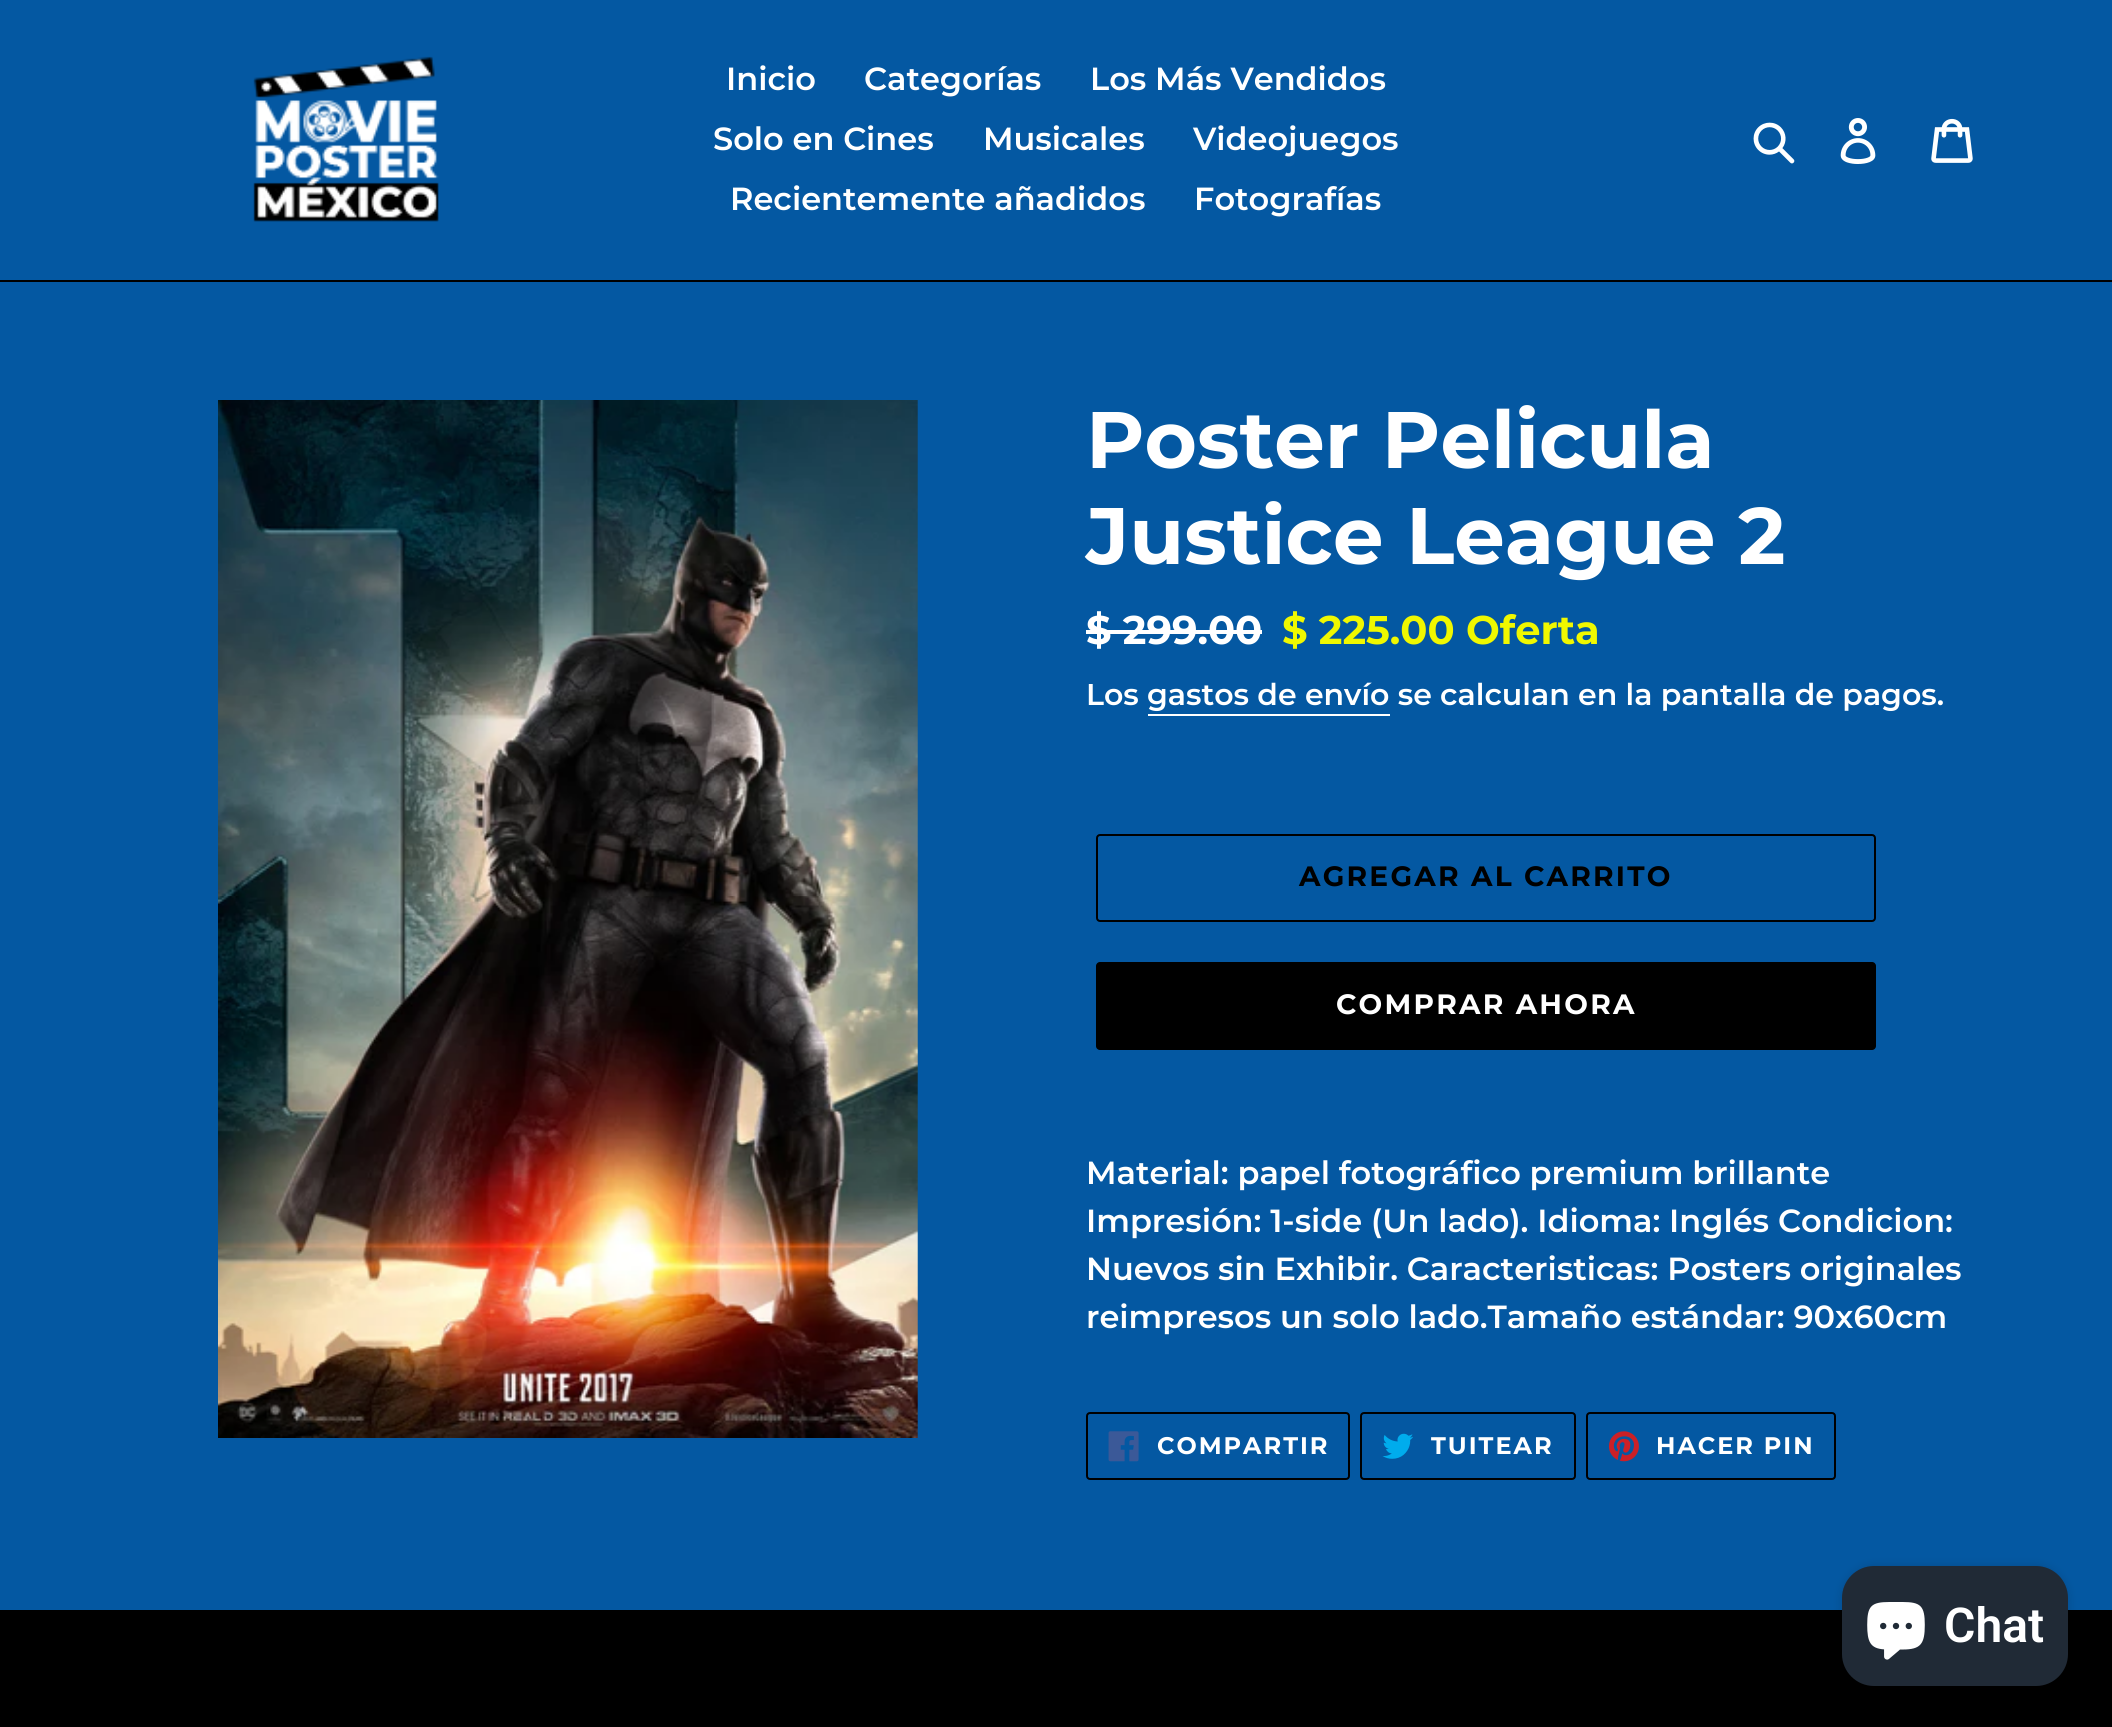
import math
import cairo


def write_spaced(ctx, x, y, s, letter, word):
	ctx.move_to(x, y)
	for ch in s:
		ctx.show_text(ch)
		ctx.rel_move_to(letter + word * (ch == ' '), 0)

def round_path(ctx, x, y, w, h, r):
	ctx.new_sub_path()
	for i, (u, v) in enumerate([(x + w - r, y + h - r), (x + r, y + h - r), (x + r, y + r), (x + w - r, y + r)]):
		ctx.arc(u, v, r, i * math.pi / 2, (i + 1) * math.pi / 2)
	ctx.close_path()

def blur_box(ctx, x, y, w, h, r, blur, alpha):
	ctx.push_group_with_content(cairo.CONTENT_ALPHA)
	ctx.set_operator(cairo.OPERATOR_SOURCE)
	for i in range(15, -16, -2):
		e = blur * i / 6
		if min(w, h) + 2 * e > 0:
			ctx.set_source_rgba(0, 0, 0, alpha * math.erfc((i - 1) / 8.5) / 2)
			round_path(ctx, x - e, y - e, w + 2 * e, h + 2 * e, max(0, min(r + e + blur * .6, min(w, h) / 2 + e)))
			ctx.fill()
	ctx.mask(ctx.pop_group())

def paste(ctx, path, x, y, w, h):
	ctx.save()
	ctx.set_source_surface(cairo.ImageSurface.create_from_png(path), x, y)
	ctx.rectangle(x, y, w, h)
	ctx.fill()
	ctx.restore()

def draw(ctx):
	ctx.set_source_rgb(0.016, 0.345, 0.635)
	ctx.paint()
	ctx.set_source_rgb(0, 0, 0)
	ctx.rectangle(0, 280, 2112, 2)
	ctx.fill()
	paste(ctx, 'media/1.png', 253, 56, 186, 166)
	ctx.select_font_face('Montserrat SemiBold')
	ctx.set_font_size(32)
	ctx.set_source_rgb(1, 1, 1)
	for x, y, s in [
		(726, 90, 'Inicio'),
		(864, 90, 'Categorías'),
		(1090, 90, 'Los Más Vendidos'),
		(713, 150, 'Solo en Cines'),
		(983, 150, 'Musicales'),
		(1193, 150, 'Videojuegos'),
		(730, 210, 'Recientemente añadidos'),
		(1194, 210, 'Fotografías'),
	]:
		ctx.move_to(x, y)
		ctx.show_text(s)
	paste(ctx, 'media/2.png', 1753, 122, 42, 42)
	paste(ctx, 'media/3.png', 1840, 118, 36, 46)
	paste(ctx, 'media/4.png', 1931, 118, 42, 45)
	paste(ctx, 'media/5.png', 218, 400, 700, 1038)
	ctx.select_font_face('Montserrat', cairo.FONT_SLANT_NORMAL, cairo.FONT_WEIGHT_BOLD)
	ctx.set_font_size(80)
	ctx.move_to(1086, 468)
	ctx.show_text('Poster Pelicula')
	ctx.move_to(1086, 564)
	ctx.show_text('Justice League 2')
	ctx.set_font_size(40)
	ctx.move_to(1086, 644)
	ctx.show_text('$ 299.00')
	ctx.rectangle(1086, 630, 176, 4)
	ctx.fill()
	ctx.set_source_rgb(0.941, 0.969, 0)
	ctx.move_to(1282, 644)
	ctx.show_text('$ 225.00 Oferta')
	ctx.select_font_face('Montserrat SemiBold')
	ctx.set_font_size(30)
	ctx.set_source_rgb(1, 1, 1)
	ctx.move_to(1086, 705)
	ctx.show_text('Los gastos de envío se calculan en la pantalla de pagos.')
	ctx.rectangle(1148, 714, 242, 2)
	ctx.fill()
	round_path(ctx, 1097, 835, 778, 86, 3)
	ctx.set_source_rgb(0, 0, 0)
	ctx.stroke()
	ctx.select_font_face('Montserrat', cairo.FONT_SLANT_NORMAL, cairo.FONT_WEIGHT_BOLD)
	ctx.set_font_size(28)
	write_spaced(ctx, 1299, 886, 'AGREGAR AL CARRITO', 2.25, 0)
	round_path(ctx, 1096, 962, 780, 88, 4)
	ctx.fill()
	ctx.set_source_rgb(1, 1, 1)
	write_spaced(ctx, 1336, 1014, 'COMPRAR AHORA', 2.25, 0)
	ctx.select_font_face('Montserrat SemiBold')
	ctx.set_font_size(32)
	for x, y, s in [
		(1086, 1184, 'Material: papel fotográfico premium brillante'),
		(1086, 1232, 'Impresión: 1-side (Un lado). Idioma: Inglés Condicion:'),
		(1086, 1280, 'Nuevos sin Exhibir. Caracteristicas: Posters originales'),
		(1086, 1328, 'reimpresos un solo lado.Tamaño estándar: 90x60cm'),
	]:
		ctx.move_to(x, y)
		ctx.show_text(s)
	round_path(ctx, 1087, 1413, 262, 66, 3)
	ctx.set_source_rgb(0, 0, 0)
	ctx.stroke()
	paste(ctx, 'media/6.png', 1108, 1431, 31, 31)
	ctx.select_font_face('Montserrat', cairo.FONT_SLANT_NORMAL, cairo.FONT_WEIGHT_BOLD)
	ctx.set_font_size(24)
	ctx.set_source_rgb(1, 1, 1)
	write_spaced(ctx, 1157, 1454, 'COMPARTIR', 2, 0)
	round_path(ctx, 1361, 1413, 214, 66, 3)
	ctx.set_source_rgb(0, 0, 0)
	ctx.stroke()
	paste(ctx, 'media/7.png', 1382, 1433, 31, 26)
	ctx.set_source_rgb(1, 1, 1)
	write_spaced(ctx, 1431, 1454, 'TUITEAR', 2, 0)
	round_path(ctx, 1587, 1413, 248, 66, 3)
	ctx.set_source_rgb(0, 0, 0)
	ctx.stroke()
	paste(ctx, 'media/8.png', 1608, 1431, 31, 31)
	ctx.set_source_rgb(1, 1, 1)
	write_spaced(ctx, 1656, 1454, 'HACER PIN', 2, 0)
	ctx.set_source_rgb(0, 0, 0)
	ctx.rectangle(0, 1610, 2112, 117)
	ctx.fill()
	ctx.set_source_rgb(0, 0, 0)
	blur_box(ctx, 1842, 1566, 226, 120, 32, 5, 0.15)
	ctx.set_source_rgb(0.125, 0.165, 0.212)
	round_path(ctx, 1842, 1566, 226, 120, 32)
	ctx.fill()
	paste(ctx, 'media/9.png', 1867, 1602, 58, 58)
	ctx.select_font_face('Roboto SemiBold')
	ctx.set_font_size(48)
	ctx.set_source_rgb(1, 1, 1)
	ctx.move_to(1944, 1642)
	ctx.show_text('Chat')


surface = cairo.ImageSurface(cairo.FORMAT_RGB24, 2112, 1727)
ctx = cairo.Context(surface)
options = cairo.FontOptions()
options.set_hint_metrics(cairo.HINT_METRICS_OFF)
options.set_hint_style(cairo.HINT_STYLE_NONE)
ctx.set_font_options(options)
ctx.set_miter_limit(4)
draw(ctx)
surface.write_to_png('image.png')
